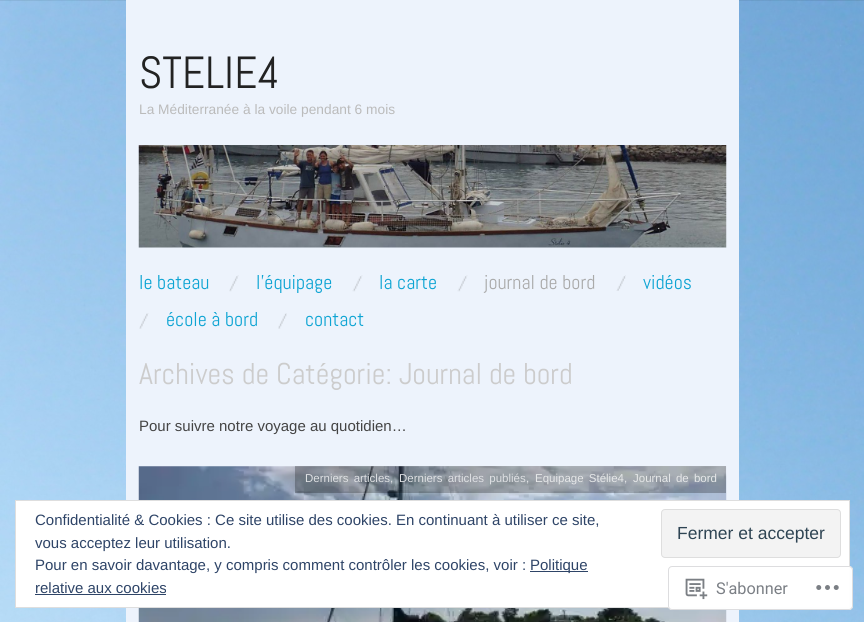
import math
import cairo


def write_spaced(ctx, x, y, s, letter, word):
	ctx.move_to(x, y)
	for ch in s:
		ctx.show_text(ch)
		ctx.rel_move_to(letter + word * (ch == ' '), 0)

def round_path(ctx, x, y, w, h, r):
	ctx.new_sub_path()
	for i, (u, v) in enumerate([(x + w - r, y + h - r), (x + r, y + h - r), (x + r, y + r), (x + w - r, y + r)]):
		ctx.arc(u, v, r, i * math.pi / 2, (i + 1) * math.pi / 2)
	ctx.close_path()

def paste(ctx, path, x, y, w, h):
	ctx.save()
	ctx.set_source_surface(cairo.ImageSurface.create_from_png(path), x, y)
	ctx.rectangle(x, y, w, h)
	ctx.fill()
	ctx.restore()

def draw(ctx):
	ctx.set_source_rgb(1, 1, 1)
	ctx.paint()
	paste(ctx, 'media/1.png', 0, 0, 864, 622)
	ctx.set_source_rgb(0.929, 0.953, 0.988)
	ctx.rectangle(126, 0, 613, 622)
	ctx.fill()
	ctx.select_font_face('Abel')
	ctx.set_font_size(45)
	ctx.set_source_rgb(0.133, 0.133, 0.133)
	ctx.move_to(139, 88)
	ctx.show_text('STELIE4')
	ctx.select_font_face('Liberation Sans')
	ctx.set_font_size(13.75)
	ctx.set_source_rgb(0.733, 0.733, 0.733)
	ctx.move_to(139, 114)
	ctx.show_text('La Méditerranée à la voile pendant 6 mois')
	paste(ctx, 'media/2.png', 138, 145, 589, 103)
	ctx.select_font_face('Abel')
	ctx.set_font_size(20)
	ctx.set_source_rgb(0.051, 0.643, 0.827)
	ctx.move_to(139, 289)
	ctx.show_text('le bateau')
	paste(ctx, 'media/3.png', 229, 275, 10, 17)
	ctx.move_to(256, 289)
	ctx.show_text('l’équipage')
	paste(ctx, 'media/4.png', 352, 275, 11, 17)
	ctx.move_to(379, 289)
	ctx.show_text('la carte')
	paste(ctx, 'media/5.png', 457, 275, 11, 17)
	ctx.set_source_rgb(0.667, 0.667, 0.667)
	ctx.move_to(484, 289)
	ctx.show_text('journal de bord')
	paste(ctx, 'media/6.png', 616, 275, 10, 16)
	ctx.set_source_rgb(0.051, 0.643, 0.827)
	ctx.move_to(643, 289)
	ctx.show_text('vidéos')
	paste(ctx, 'media/7.png', 139, 313, 10, 16)
	ctx.move_to(166, 326)
	ctx.show_text('école à bord')
	paste(ctx, 'media/8.png', 278, 313, 9, 16)
	ctx.move_to(305, 326)
	ctx.show_text('contact')
	ctx.set_font_size(30)
	ctx.set_source_rgb(0.8, 0.8, 0.8)
	ctx.move_to(139, 384)
	ctx.show_text('Archives de Catégorie: Journal de bord')
	ctx.select_font_face('Liberation Sans')
	ctx.set_font_size(15)
	ctx.set_source_rgb(0.267, 0.267, 0.267)
	ctx.move_to(139, 431)
	ctx.show_text('Pour suivre notre voyage au quotidien…')
	paste(ctx, 'media/9.png', 138, 466, 589, 156)
	ctx.set_source_rgba(0, 0, 0, 0.25)
	ctx.rectangle(295, 466, 431, 27)
	ctx.fill()
	ctx.set_font_size(11.5)
	ctx.set_source_rgb(0.871, 0.878, 0.89)
	write_spaced(ctx, 305, 482, 'Derniers articles', 0, 2)
	ctx.move_to(390, 482)
	ctx.show_text(',')
	write_spaced(ctx, 399, 482, 'Derniers articles publiés', 0, 2)
	ctx.set_source_rgb(0.898, 0.906, 0.91)
	ctx.move_to(526, 482)
	ctx.show_text(',')
	write_spaced(ctx, 535, 482, 'Equipage Stélie4', 0, 2)
	ctx.move_to(624, 482)
	ctx.show_text(',')
	write_spaced(ctx, 633, 482, 'Journal de bord', 0, 2)
	ctx.set_source_rgb(1, 1, 1)
	ctx.rectangle(15.5, 500.5, 834, 107)
	ctx.fill_preserve()
	ctx.set_source_rgb(0.871, 0.871, 0.871)
	ctx.set_line_width(1)
	ctx.stroke()
	ctx.set_font_size(15)
	ctx.set_source_rgb(0.18, 0.267, 0.404)
	ctx.move_to(35, 525)
	ctx.show_text('Confidentialité & Cookies : Ce site utilise des cookies. En continuant à utiliser ce site,')
	ctx.set_source_rgb(0.953, 0.953, 0.953)
	round_path(ctx, 661.5, 509.5, 179, 48, 3.5)
	ctx.fill_preserve()
	ctx.set_source_rgb(0.871, 0.871, 0.871)
	ctx.stroke()
	ctx.set_font_size(17.5)
	ctx.set_source_rgb(0.18, 0.267, 0.325)
	ctx.move_to(677, 539)
	ctx.show_text('Fermer et accepter')
	ctx.set_font_size(15)
	ctx.set_source_rgb(0.18, 0.267, 0.404)
	ctx.move_to(35, 548)
	ctx.show_text('vous acceptez leur utilisation.')
	ctx.move_to(35, 570)
	ctx.show_text('Pour en savoir davantage, y compris comment contrôler les cookies, voir :')
	ctx.rectangle(530, 571, 58, 1)
	ctx.fill()
	ctx.move_to(530, 570)
	ctx.show_text('Politique')
	ctx.move_to(35, 593)
	ctx.show_text('relative aux cookies')
	ctx.rectangle(35, 594, 131, 1)
	ctx.fill()
	ctx.set_source_rgba(1, 1, 1, 0.98)
	round_path(ctx, 668, 566, 185, 44, 4)
	ctx.fill()
	round_path(ctx, 668.5, 566.5, 184, 43, 3.5)
	ctx.set_source_rgba(0.863, 0.863, 0.871, 0.98)
	ctx.stroke()
	paste(ctx, 'media/10.png', 685, 578, 23, 22)
	ctx.select_font_face('Roboto')
	ctx.set_font_size(16.25)
	ctx.set_source_rgb(0.482, 0.498, 0.522)
	ctx.move_to(716, 594)
	ctx.show_text('S\'abonner')
	paste(ctx, 'media/11.png', 816, 585, 23, 5)


surface = cairo.ImageSurface(cairo.FORMAT_RGB24, 864, 622)
ctx = cairo.Context(surface)
options = cairo.FontOptions()
options.set_hint_metrics(cairo.HINT_METRICS_OFF)
options.set_hint_style(cairo.HINT_STYLE_NONE)
ctx.set_font_options(options)
ctx.set_miter_limit(4)
draw(ctx)
surface.write_to_png('image.png')
